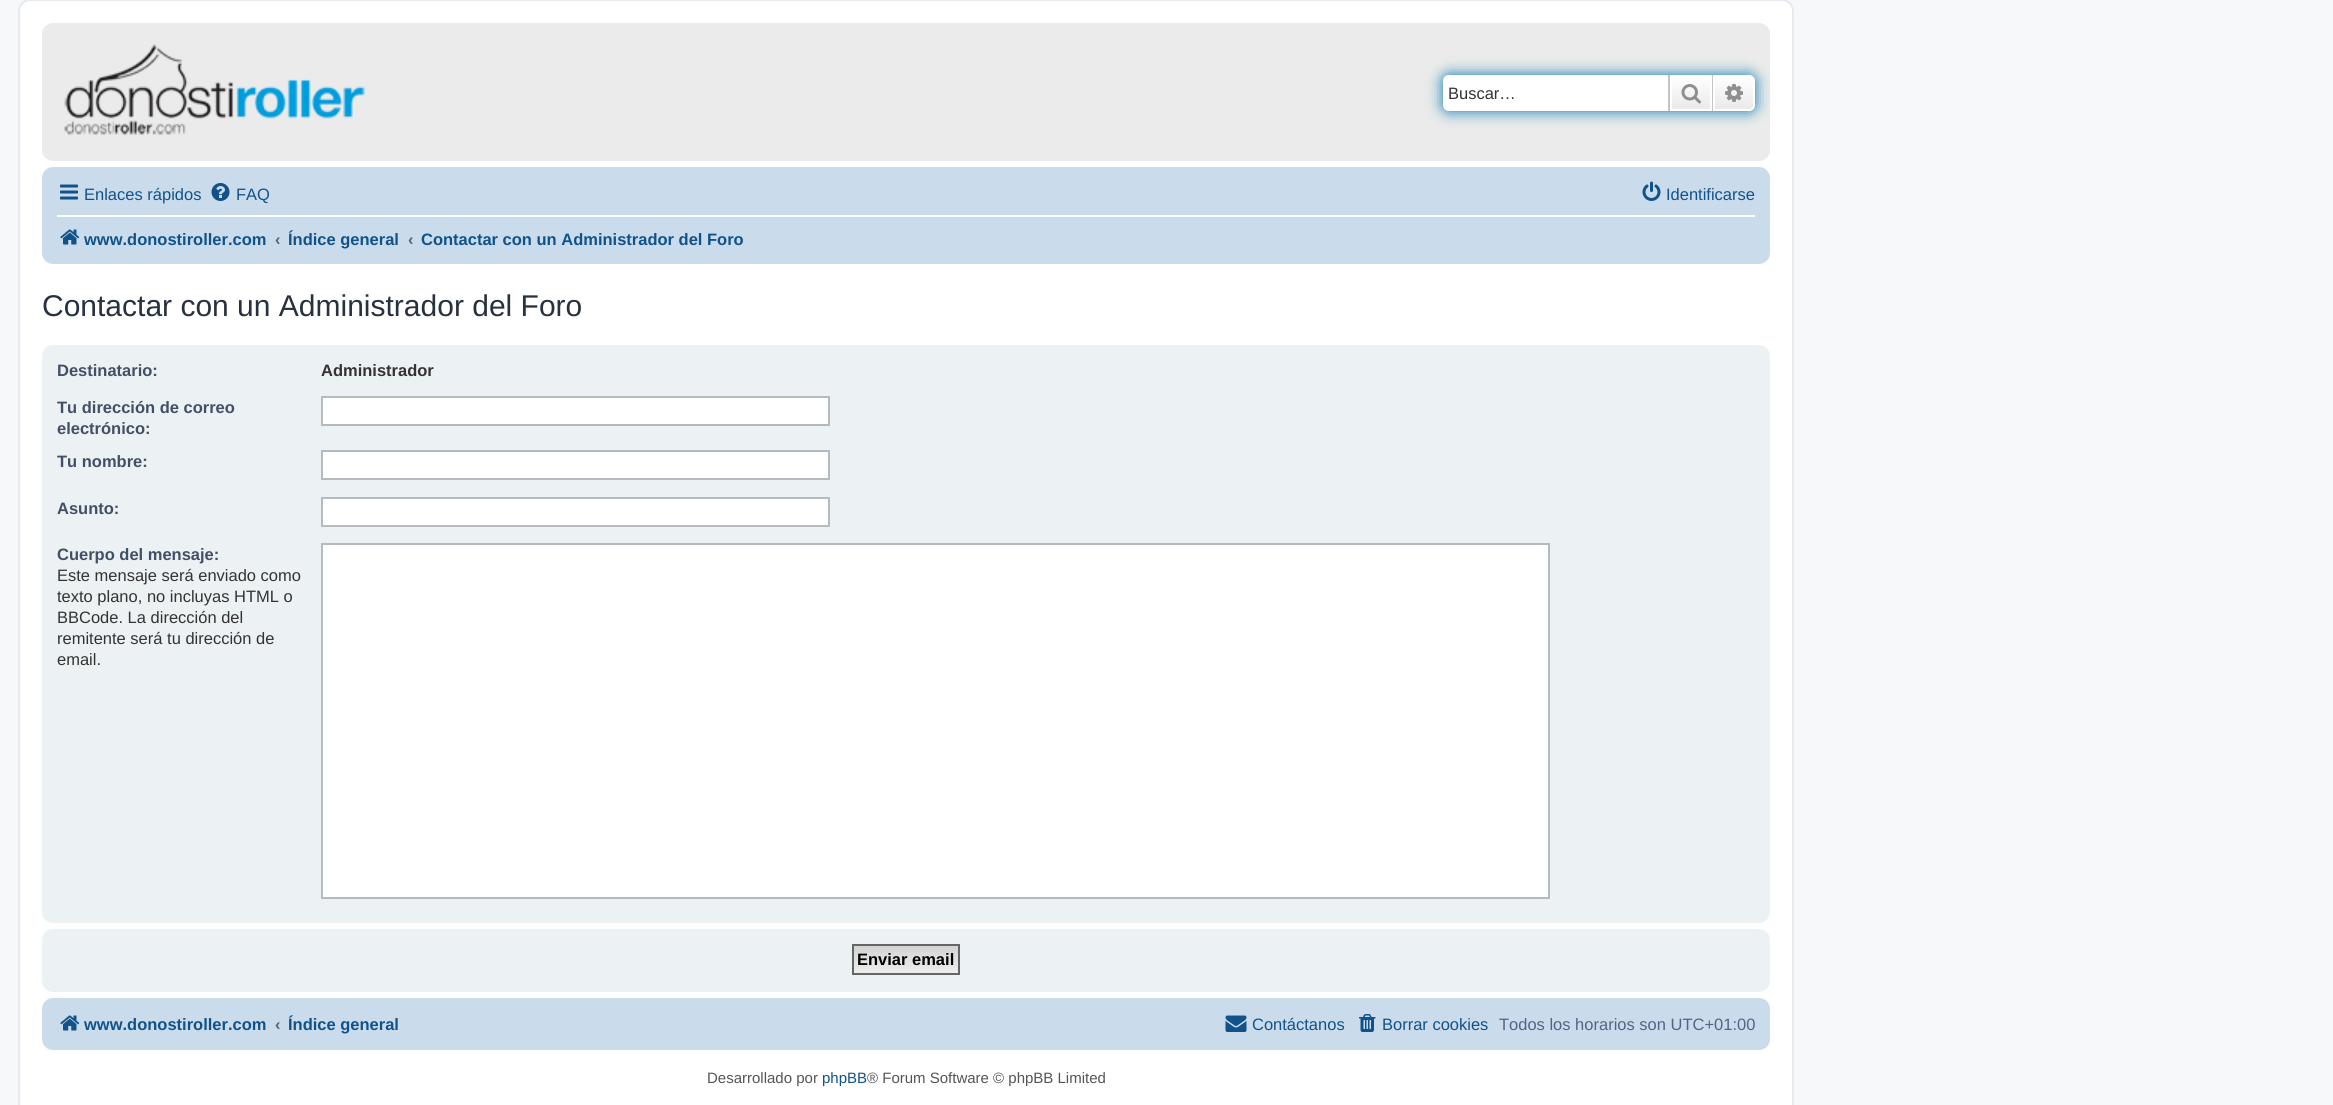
import math
import cairo


def round_path(ctx, x, y, w, h, r):
	ctx.new_sub_path()
	for i, (u, v) in enumerate([(x + w - r, y + h - r), (x + r, y + h - r), (x + r, y + r), (x + w - r, y + r)]):
		ctx.arc(u, v, r, i * math.pi / 2, (i + 1) * math.pi / 2)
	ctx.close_path()

def blur_box(ctx, x, y, w, h, r, blur, alpha):
	ctx.push_group_with_content(cairo.CONTENT_ALPHA)
	ctx.set_operator(cairo.OPERATOR_SOURCE)
	for i in range(15, -16, -2):
		e = blur * i / 6
		if min(w, h) + 2 * e > 0:
			ctx.set_source_rgba(0, 0, 0, alpha * math.erfc((i - 1) / 8.5) / 2)
			round_path(ctx, x - e, y - e, w + 2 * e, h + 2 * e, max(0, min(r + e + blur * .6, min(w, h) / 2 + e)))
			ctx.fill()
	ctx.mask(ctx.pop_group())

def paste(ctx, path, x, y, w, h):
	ctx.save()
	ctx.set_source_surface(cairo.ImageSurface.create_from_png(path), x, y)
	ctx.rectangle(x, y, w, h)
	ctx.fill()
	ctx.restore()

def draw(ctx):
	ctx.set_source_rgb(0.961, 0.969, 0.98)
	ctx.paint()
	ctx.set_source_rgb(1, 1, 1)
	round_path(ctx, 19, 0, 1774, 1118, 11)
	ctx.fill_preserve()
	ctx.set_source_rgb(0.902, 0.914, 0.929)
	ctx.stroke()
	ctx.set_source_rgb(0.918, 0.918, 0.918)
	round_path(ctx, 42, 23, 1728, 138, 11)
	ctx.fill()
	paste(ctx, 'media/1.png', 64, 44, 301, 91)
	ctx.set_source_rgb(0, 0.459, 0.69)
	blur_box(ctx, 1443, 75, 312, 36, 6, 7.5, 1)
	ctx.set_source_rgb(1, 1, 1)
	ctx.new_path()
	ctx.move_to(1449, 75)
	ctx.line_to(1668, 75)
	ctx.line_to(1668, 111)
	ctx.line_to(1449, 111)
	ctx.curve_to(1445.5, 111, 1443, 108.5, 1443, 105)
	ctx.line_to(1443, 81)
	ctx.curve_to(1443, 77.5, 1445.5, 75, 1449, 75)
	ctx.close_path()
	ctx.fill()
	ctx.select_font_face('Liberation Sans')
	ctx.set_font_size(16.5)
	ctx.set_source_rgb(0.2, 0.2, 0.2)
	ctx.move_to(1448, 99)
	ctx.show_text('Buscar…')
	gradient = cairo.LinearGradient(1691, 75, 1691, 111)
	gradient.add_color_stop_rgba(0, 1, 1, 1, 1)
	gradient.add_color_stop_rgba(1, 0.914, 0.914, 0.914, 1)
	ctx.set_source(gradient)
	ctx.rectangle(1672, 77, 38, 32)
	ctx.fill()
	ctx.rectangle(1671, 76, 40, 34)
	ctx.set_source_rgb(1, 1, 1)
	ctx.stroke()
	ctx.set_source_rgb(0.78, 0.765, 0.749)
	ctx.rectangle(1712, 75, 1, 36)
	ctx.fill()
	ctx.rectangle(1668, 75, 2, 36)
	ctx.fill()
	paste(ctx, 'media/2.png', 1681, 84, 20, 20)
	gradient = cairo.LinearGradient(1734, 75, 1734, 111)
	gradient.add_color_stop_rgba(0, 1, 1, 1, 1)
	gradient.add_color_stop_rgba(1, 0.914, 0.914, 0.914, 1)
	ctx.set_source(gradient)
	ctx.new_path()
	ctx.move_to(1714, 76)
	ctx.line_to(1749, 76)
	ctx.curve_to(1752, 76, 1754, 78, 1754, 81)
	ctx.line_to(1754, 105)
	ctx.curve_to(1754, 108, 1752, 110, 1749, 110)
	ctx.line_to(1714, 110)
	ctx.close_path()
	ctx.fill_preserve()
	ctx.set_source_rgb(1, 1, 1)
	ctx.stroke()
	paste(ctx, 'media/3.png', 1725, 84, 18, 18)
	ctx.set_source_rgb(0.792, 0.863, 0.922)
	round_path(ctx, 42, 167, 1728, 97, 11)
	ctx.fill()
	paste(ctx, 'media/4.png', 60, 184, 18, 16)
	ctx.set_source_rgb(0.063, 0.322, 0.537)
	ctx.move_to(84, 200)
	ctx.show_text('Enlaces rápidos')
	paste(ctx, 'media/5.png', 211, 183, 19, 18)
	ctx.move_to(236, 200)
	ctx.show_text('FAQ')
	paste(ctx, 'media/6.png', 1642, 181, 19, 20)
	ctx.move_to(1666, 200)
	ctx.show_text('Identificarse')
	ctx.set_source_rgb(1, 1, 1)
	ctx.rectangle(57, 215, 1698, 2)
	ctx.fill()
	paste(ctx, 'media/7.png', 60, 229, 20, 16)
	ctx.select_font_face('Liberation Sans', cairo.FONT_SLANT_NORMAL, cairo.FONT_WEIGHT_BOLD)
	ctx.set_source_rgb(0.063, 0.322, 0.537)
	ctx.move_to(84, 245)
	ctx.show_text('www.donostiroller.com')
	ctx.set_source_rgb(0.325, 0.392, 0.51)
	ctx.move_to(275, 245)
	ctx.show_text('‹')
	ctx.set_source_rgb(0.063, 0.322, 0.537)
	ctx.move_to(288, 245)
	ctx.show_text('Índice general')
	ctx.set_source_rgb(0.325, 0.392, 0.51)
	ctx.move_to(408, 245)
	ctx.show_text('‹')
	ctx.set_source_rgb(0.063, 0.322, 0.537)
	ctx.move_to(421, 245)
	ctx.show_text('Contactar con un Administrador del Foro')
	ctx.select_font_face('Liberation Sans')
	ctx.set_font_size(30)
	ctx.set_source_rgb(0.157, 0.192, 0.247)
	ctx.move_to(42, 316)
	ctx.show_text('Contactar con un Administrador del Foro')
	ctx.set_source_rgb(0.925, 0.945, 0.953)
	round_path(ctx, 42, 345, 1728, 578, 11)
	ctx.fill()
	ctx.select_font_face('Liberation Sans', cairo.FONT_SLANT_NORMAL, cairo.FONT_WEIGHT_BOLD)
	ctx.set_font_size(16.5)
	ctx.set_source_rgb(0.259, 0.314, 0.404)
	ctx.move_to(57, 376)
	ctx.show_text('Destinatario:')
	ctx.set_source_rgb(0.2, 0.2, 0.2)
	ctx.move_to(321, 376)
	ctx.show_text('Administrador')
	ctx.set_source_rgb(0.259, 0.314, 0.404)
	ctx.move_to(57, 413)
	ctx.show_text('Tu dirección de correo')
	ctx.move_to(57, 434)
	ctx.show_text('electrónico:')
	ctx.set_source_rgb(1, 1, 1)
	ctx.rectangle(322, 397, 507, 28)
	ctx.fill_preserve()
	ctx.set_source_rgb(0.706, 0.729, 0.753)
	ctx.stroke()
	ctx.set_source_rgb(0.259, 0.314, 0.404)
	ctx.move_to(57, 467)
	ctx.show_text('Tu nombre:')
	ctx.set_source_rgb(1, 1, 1)
	ctx.rectangle(322, 451, 507, 28)
	ctx.fill_preserve()
	ctx.set_source_rgb(0.706, 0.729, 0.753)
	ctx.stroke()
	ctx.set_source_rgb(0.259, 0.314, 0.404)
	ctx.move_to(57, 514)
	ctx.show_text('Asunto:')
	ctx.set_source_rgb(1, 1, 1)
	ctx.rectangle(322, 498, 507, 28)
	ctx.fill_preserve()
	ctx.set_source_rgb(0.706, 0.729, 0.753)
	ctx.stroke()
	ctx.set_source_rgb(0.259, 0.314, 0.404)
	ctx.move_to(57, 560)
	ctx.show_text('Cuerpo del mensaje:')
	ctx.select_font_face('Liberation Sans')
	ctx.set_source_rgb(0.2, 0.2, 0.2)
	for x, y, s in [
		(57, 581, 'Este mensaje será enviado como'),
		(57, 602, 'texto plano, no incluyas HTML o'),
		(57, 623, 'BBCode. La dirección del'),
		(57, 644, 'remitente será tu dirección de'),
		(57, 665, 'email.'),
	]:
		ctx.move_to(x, y)
		ctx.show_text(s)
	ctx.set_source_rgb(1, 1, 1)
	ctx.rectangle(322, 544, 1227, 354)
	ctx.fill_preserve()
	ctx.set_source_rgb(0.706, 0.729, 0.753)
	ctx.stroke()
	ctx.set_source_rgb(0.925, 0.945, 0.953)
	round_path(ctx, 42, 929, 1728, 63, 11)
	ctx.fill()
	gradient = cairo.LinearGradient(906, 945, 906, 974)
	gradient.add_color_stop_rgba(0, 0.824, 0.824, 0.824, 1)
	gradient.add_color_stop_rgba(1, 0.937, 0.937, 0.937, 1)
	ctx.set_source(gradient)
	ctx.rectangle(854, 946, 104, 27)
	ctx.fill()
	ctx.rectangle(853, 945, 106, 29)
	ctx.set_source_rgb(0.4, 0.4, 0.4)
	ctx.stroke()
	ctx.select_font_face('Liberation Sans', cairo.FONT_SLANT_NORMAL, cairo.FONT_WEIGHT_BOLD)
	ctx.set_source_rgb(0, 0, 0)
	ctx.move_to(857, 965)
	ctx.show_text('Enviar email')
	ctx.set_source_rgb(0.792, 0.863, 0.922)
	round_path(ctx, 42, 998, 1728, 52, 11)
	ctx.fill()
	paste(ctx, 'media/7.png', 60, 1015, 20, 16)
	ctx.set_source_rgb(0.063, 0.322, 0.537)
	ctx.move_to(84, 1030)
	ctx.show_text('www.donostiroller.com')
	ctx.set_source_rgb(0.325, 0.392, 0.51)
	ctx.move_to(275, 1030)
	ctx.show_text('‹')
	ctx.set_source_rgb(0.063, 0.322, 0.537)
	ctx.move_to(288, 1030)
	ctx.show_text('Índice general')
	paste(ctx, 'media/8.png', 1225, 1015, 22, 17)
	ctx.select_font_face('Liberation Sans')
	ctx.move_to(1252, 1030)
	ctx.show_text('Contáctanos')
	paste(ctx, 'media/9.png', 1359, 1014, 17, 18)
	ctx.move_to(1382, 1030)
	ctx.show_text('Borrar cookies')
	ctx.set_source_rgb(0.325, 0.392, 0.51)
	ctx.move_to(1499, 1030)
	ctx.show_text('Todos los horarios son UTC+01:00')
	ctx.set_font_size(15)
	ctx.set_source_rgb(0.333, 0.333, 0.333)
	ctx.move_to(707, 1083)
	ctx.show_text('Desarrollado por')
	ctx.set_source_rgb(0.063, 0.322, 0.537)
	ctx.move_to(822, 1083)
	ctx.show_text('phpBB')
	ctx.set_source_rgb(0.333, 0.333, 0.333)
	ctx.move_to(867, 1083)
	ctx.show_text('® Forum Software © phpBB Limited')


surface = cairo.ImageSurface(cairo.FORMAT_RGB24, 2333, 1105)
ctx = cairo.Context(surface)
options = cairo.FontOptions()
options.set_hint_metrics(cairo.HINT_METRICS_OFF)
options.set_hint_style(cairo.HINT_STYLE_NONE)
ctx.set_font_options(options)
ctx.set_miter_limit(4)
draw(ctx)
surface.write_to_png('image.png')
